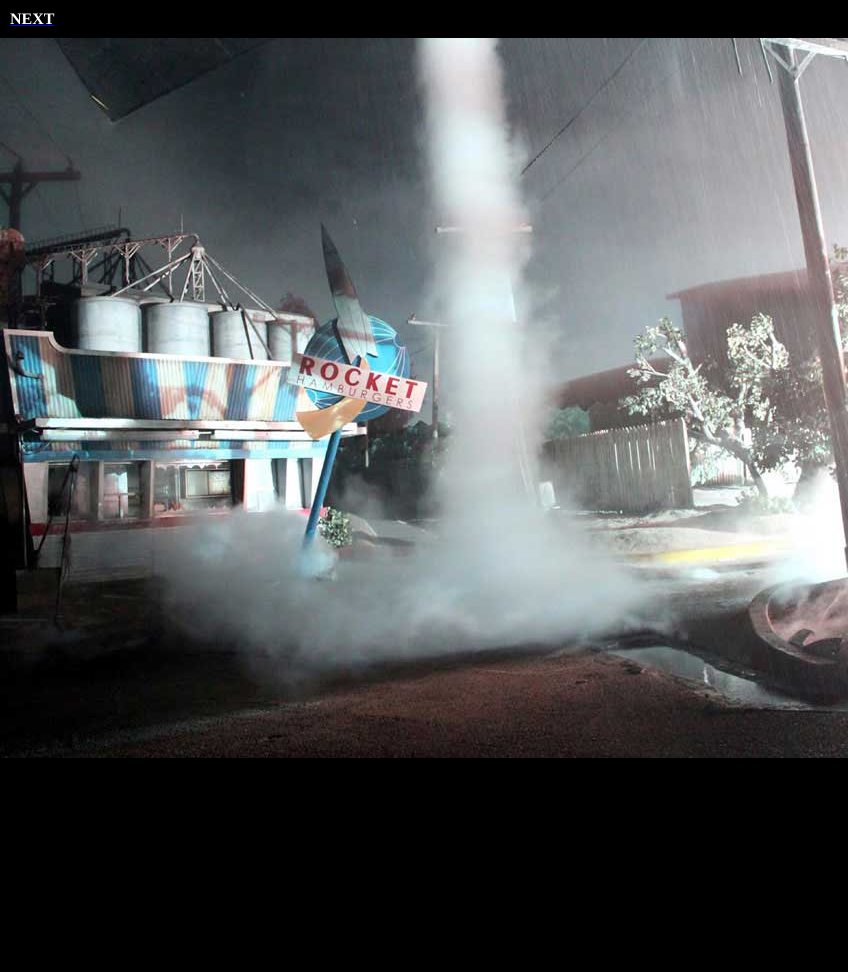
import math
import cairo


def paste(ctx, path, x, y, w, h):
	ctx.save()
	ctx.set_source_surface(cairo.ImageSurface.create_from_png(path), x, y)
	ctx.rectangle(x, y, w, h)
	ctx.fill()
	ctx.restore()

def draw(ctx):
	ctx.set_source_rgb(0, 0, 0)
	ctx.paint()
	ctx.select_font_face('Liberation Serif', cairo.FONT_SLANT_NORMAL, cairo.FONT_WEIGHT_BOLD)
	ctx.set_font_size(16)
	ctx.set_source_rgb(1, 1, 1)
	ctx.move_to(10, 24)
	ctx.show_text('NEXT')
	ctx.set_source_rgb(0, 0, 1)
	ctx.rectangle(10, 25, 44, 1)
	ctx.fill()
	paste(ctx, 'media/1.png', 0, 38, 848, 720)


surface = cairo.ImageSurface(cairo.FORMAT_RGB24, 848, 972)
ctx = cairo.Context(surface)
options = cairo.FontOptions()
options.set_hint_metrics(cairo.HINT_METRICS_OFF)
options.set_hint_style(cairo.HINT_STYLE_NONE)
ctx.set_font_options(options)
ctx.set_miter_limit(4)
draw(ctx)
surface.write_to_png('image.png')
